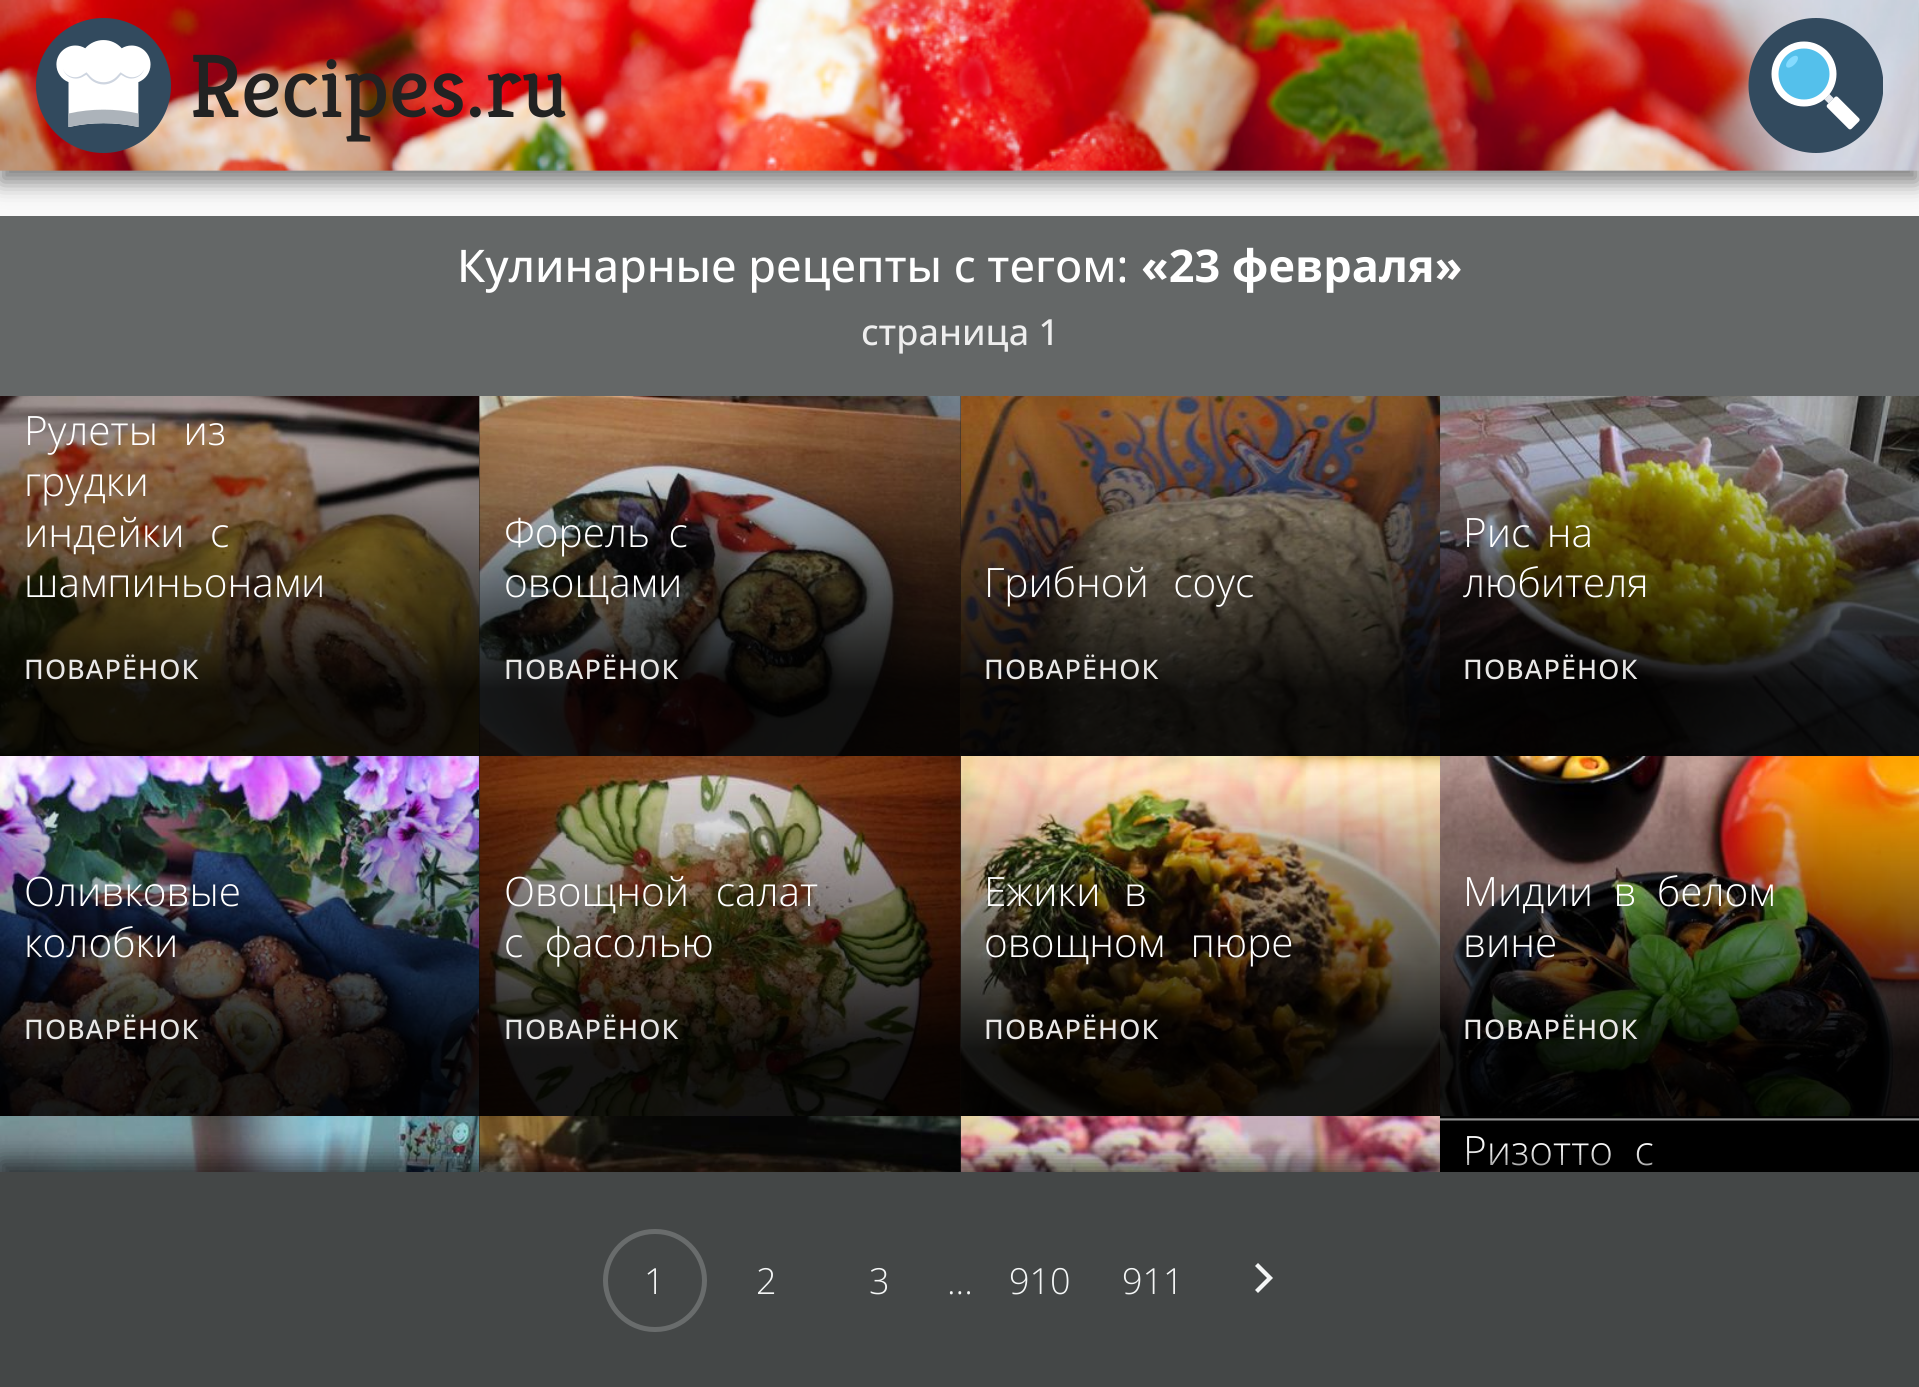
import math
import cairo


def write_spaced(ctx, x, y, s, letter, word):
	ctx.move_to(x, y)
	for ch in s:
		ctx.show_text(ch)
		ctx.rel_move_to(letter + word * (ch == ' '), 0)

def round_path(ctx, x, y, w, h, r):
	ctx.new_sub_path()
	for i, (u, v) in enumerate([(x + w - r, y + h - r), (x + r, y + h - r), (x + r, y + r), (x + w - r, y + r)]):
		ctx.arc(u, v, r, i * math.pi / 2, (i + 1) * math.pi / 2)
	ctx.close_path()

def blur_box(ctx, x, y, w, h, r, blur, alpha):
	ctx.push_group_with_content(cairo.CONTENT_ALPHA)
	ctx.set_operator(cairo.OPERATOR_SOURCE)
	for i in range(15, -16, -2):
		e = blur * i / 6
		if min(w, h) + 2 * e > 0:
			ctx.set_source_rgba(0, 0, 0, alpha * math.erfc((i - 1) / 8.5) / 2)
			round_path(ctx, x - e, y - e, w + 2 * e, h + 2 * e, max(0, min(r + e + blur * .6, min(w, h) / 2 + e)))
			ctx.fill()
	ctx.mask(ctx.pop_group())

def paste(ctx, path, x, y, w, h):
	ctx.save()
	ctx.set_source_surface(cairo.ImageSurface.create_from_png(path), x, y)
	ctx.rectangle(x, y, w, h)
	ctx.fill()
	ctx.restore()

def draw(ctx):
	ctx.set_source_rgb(0.973, 0.973, 0.973)
	ctx.paint()
	ctx.set_source_rgb(0, 0, 0)
	blur_box(ctx, 0, 11, 1919, 171, 0, 11, 0.5)
	paste(ctx, 'media/1.png', 0, 0, 1919, 171)
	paste(ctx, 'media/2.png', 36, 18, 135, 135)
	ctx.select_font_face('Kreon Light')
	ctx.set_font_size(90)
	ctx.set_source_rgb(0.133, 0.133, 0.133)
	ctx.move_to(189, 117)
	ctx.show_text('Recipes.ru')
	paste(ctx, 'media/3.png', 1748, 18, 135, 135)
	ctx.set_source_rgb(0.392, 0.404, 0.404)
	ctx.rectangle(0, 216, 1919, 180)
	ctx.fill()
	ctx.select_font_face('Open Sans Medium')
	ctx.set_font_size(45)
	ctx.set_source_rgb(1, 1, 1)
	ctx.move_to(457, 282)
	ctx.show_text('Кулинарные рецепты с тегом:')
	ctx.select_font_face('Open Sans', cairo.FONT_SLANT_NORMAL, cairo.FONT_WEIGHT_BOLD)
	ctx.move_to(1141, 282)
	ctx.show_text('«23 февраля»')
	ctx.select_font_face('Open Sans Medium')
	ctx.set_font_size(36)
	ctx.set_source_rgb(0.933, 0.933, 0.933)
	ctx.move_to(861, 345)
	ctx.show_text('страница 1')
	paste(ctx, 'media/4.png', 0, 396, 479, 360)
	ctx.select_font_face('Open Sans Light')
	ctx.set_font_size(40.5)
	ctx.set_source_rgb(1, 1, 1)
	write_spaced(ctx, 24, 445, 'Рулеты из', 0, 15)
	ctx.move_to(24, 496)
	ctx.show_text('грудки')
	write_spaced(ctx, 24, 547, 'индейки с', 0, 15)
	ctx.move_to(24, 597)
	ctx.show_text('шампиньонами')
	ctx.select_font_face('Open Sans Medium')
	ctx.set_font_size(27)
	ctx.set_source_rgb(0.914, 0.91, 0.906)
	write_spaced(ctx, 24, 679, 'ПОВАРЁНОК', 1.1, 0)
	ctx.set_source_rgb(0.137, 0.137, 0.137)
	ctx.rectangle(479, 396, 482, 776)
	ctx.fill()
	paste(ctx, 'media/5.png', 479, 396, 482, 360)
	gradient = cairo.LinearGradient(720, 756, 720, 306)
	gradient.add_color_stop_rgba(0.15, 0, 0, 0, 0.9)
	gradient.add_color_stop_rgba(0.75, 0, 0, 0, 0)
	ctx.set_source(gradient)
	ctx.rectangle(479, 425, 482, 331)
	ctx.fill()
	ctx.select_font_face('Open Sans Light')
	ctx.set_font_size(40.5)
	ctx.set_source_rgb(1, 1, 1)
	write_spaced(ctx, 504, 547, 'Форель с', 0, 8)
	ctx.move_to(504, 597)
	ctx.show_text('овощами')
	ctx.select_font_face('Open Sans Medium')
	ctx.set_font_size(27)
	ctx.set_source_rgb(0.914, 0.91, 0.906)
	write_spaced(ctx, 504, 679, 'ПОВАРЁНОК', 1.1, 0)
	paste(ctx, 'media/6.png', 960, 396, 480, 360)
	ctx.select_font_face('Open Sans Light')
	ctx.set_font_size(40.5)
	ctx.set_source_rgb(1, 1, 1)
	write_spaced(ctx, 984, 597, 'Грибной соус', 0, 14)
	ctx.select_font_face('Open Sans Medium')
	ctx.set_font_size(27)
	ctx.set_source_rgb(0.914, 0.91, 0.906)
	write_spaced(ctx, 984, 679, 'ПОВАРЁНОК', 1.1, 0)
	paste(ctx, 'media/7.png', 1440, 396, 479, 360)
	ctx.select_font_face('Open Sans Light')
	ctx.set_font_size(40.5)
	ctx.set_source_rgb(1, 1, 1)
	write_spaced(ctx, 1463, 547, 'Рис на', 0, 6)
	ctx.move_to(1463, 597)
	ctx.show_text('любителя')
	ctx.select_font_face('Open Sans Medium')
	ctx.set_font_size(27)
	ctx.set_source_rgb(0.914, 0.91, 0.906)
	write_spaced(ctx, 1463, 679, 'ПОВАРЁНОК', 1.1, 0)
	paste(ctx, 'media/8.png', 0, 756, 479, 360)
	ctx.select_font_face('Open Sans Light')
	ctx.set_font_size(40.5)
	ctx.set_source_rgb(1, 1, 1)
	ctx.move_to(24, 906)
	ctx.show_text('Оливковые')
	ctx.move_to(24, 957)
	ctx.show_text('колобки')
	ctx.select_font_face('Open Sans Medium')
	ctx.set_font_size(27)
	ctx.set_source_rgb(0.914, 0.91, 0.906)
	write_spaced(ctx, 24, 1039, 'ПОВАРЁНОК', 1.1, 0)
	paste(ctx, 'media/9.png', 479, 756, 482, 360)
	gradient = cairo.LinearGradient(720, 1116, 720, 666)
	gradient.add_color_stop_rgba(0.15, 0, 0, 0, 0.9)
	gradient.add_color_stop_rgba(0.75, 0, 0, 0, 0)
	ctx.set_source(gradient)
	ctx.rectangle(479, 785, 482, 331)
	ctx.fill()
	ctx.select_font_face('Open Sans Light')
	ctx.set_font_size(40.5)
	ctx.set_source_rgb(1, 1, 1)
	write_spaced(ctx, 504, 906, 'Овощной салат', 0, 16)
	write_spaced(ctx, 504, 957, 'с фасолью', 0, 11)
	ctx.select_font_face('Open Sans Medium')
	ctx.set_font_size(27)
	ctx.set_source_rgb(0.914, 0.91, 0.906)
	write_spaced(ctx, 504, 1039, 'ПОВАРЁНОК', 1.1, 0)
	paste(ctx, 'media/10.png', 960, 756, 480, 360)
	ctx.select_font_face('Open Sans Light')
	ctx.set_font_size(40.5)
	ctx.set_source_rgb(1, 1, 1)
	write_spaced(ctx, 984, 906, 'Ежики в', 0, 13)
	write_spaced(ctx, 984, 957, 'овощном пюре', 0, 15)
	ctx.select_font_face('Open Sans Medium')
	ctx.set_font_size(27)
	ctx.set_source_rgb(0.914, 0.91, 0.906)
	write_spaced(ctx, 984, 1039, 'ПОВАРЁНОК', 1.1, 0)
	paste(ctx, 'media/11.png', 1440, 756, 479, 360)
	ctx.select_font_face('Open Sans Light')
	ctx.set_font_size(40.5)
	ctx.set_source_rgb(1, 1, 1)
	write_spaced(ctx, 1463, 906, 'Мидии в белом', 0, 10)
	ctx.move_to(1463, 957)
	ctx.show_text('вине')
	ctx.select_font_face('Open Sans Medium')
	ctx.set_font_size(27)
	ctx.set_source_rgb(0.914, 0.91, 0.906)
	write_spaced(ctx, 1463, 1039, 'ПОВАРЁНОК', 1.1, 0)
	paste(ctx, 'media/12.png', 0, 1116, 479, 56)
	paste(ctx, 'media/13.png', 479, 1116, 482, 56)
	gradient = cairo.LinearGradient(720, 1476, 720, 1026)
	gradient.add_color_stop_rgba(0.15, 0, 0, 0, 0.9)
	gradient.add_color_stop_rgba(0.75, 0, 0, 0, 0)
	ctx.set_source(gradient)
	ctx.rectangle(479, 1145, 463, 27)
	ctx.fill()
	paste(ctx, 'media/14.png', 960, 1116, 480, 56)
	paste(ctx, 'media/15.png', 1440, 1116, 479, 56)
	ctx.select_font_face('Open Sans Light')
	ctx.set_font_size(40.5)
	ctx.set_source_rgb(1, 1, 1)
	write_spaced(ctx, 1463, 1165, 'Ризотто с', 0, 11)
	ctx.set_source_rgb(0, 0, 0)
	blur_box(ctx, 0, 1161, 1919, 216, 0, 11, 0.5)
	ctx.set_source_rgb(0.267, 0.278, 0.278)
	ctx.rectangle(0, 1172, 1919, 215)
	ctx.fill()
	round_path(ctx, 605.5, 1231.5, 99, 98, 49)
	ctx.set_source_rgb(0.412, 0.424, 0.424)
	ctx.set_line_width(5)
	ctx.stroke()
	ctx.set_font_size(36)
	ctx.set_source_rgb(0.957, 0.961, 0.961)
	for x, y, s in [
		(644, 1294, '1'),
		(756, 1294, '2'),
		(869, 1294, '3'),
		(947, 1294, '...'),
		(1009, 1294, '910'),
		(1122, 1294, '911'),
	]:
		ctx.move_to(x, y)
		ctx.show_text(s)
	ctx.new_path()
	ctx.move_to(1273, 1278)
	ctx.line_to(1258, 1263)
	ctx.line_to(1255, 1266)
	ctx.line_to(1267, 1278)
	ctx.line_to(1255, 1290)
	ctx.line_to(1258, 1293)
	ctx.close_path()
	ctx.fill()


surface = cairo.ImageSurface(cairo.FORMAT_RGB24, 1919, 1387)
ctx = cairo.Context(surface)
options = cairo.FontOptions()
options.set_hint_metrics(cairo.HINT_METRICS_OFF)
options.set_hint_style(cairo.HINT_STYLE_NONE)
ctx.set_font_options(options)
ctx.set_miter_limit(4)
draw(ctx)
surface.write_to_png('image.png')
